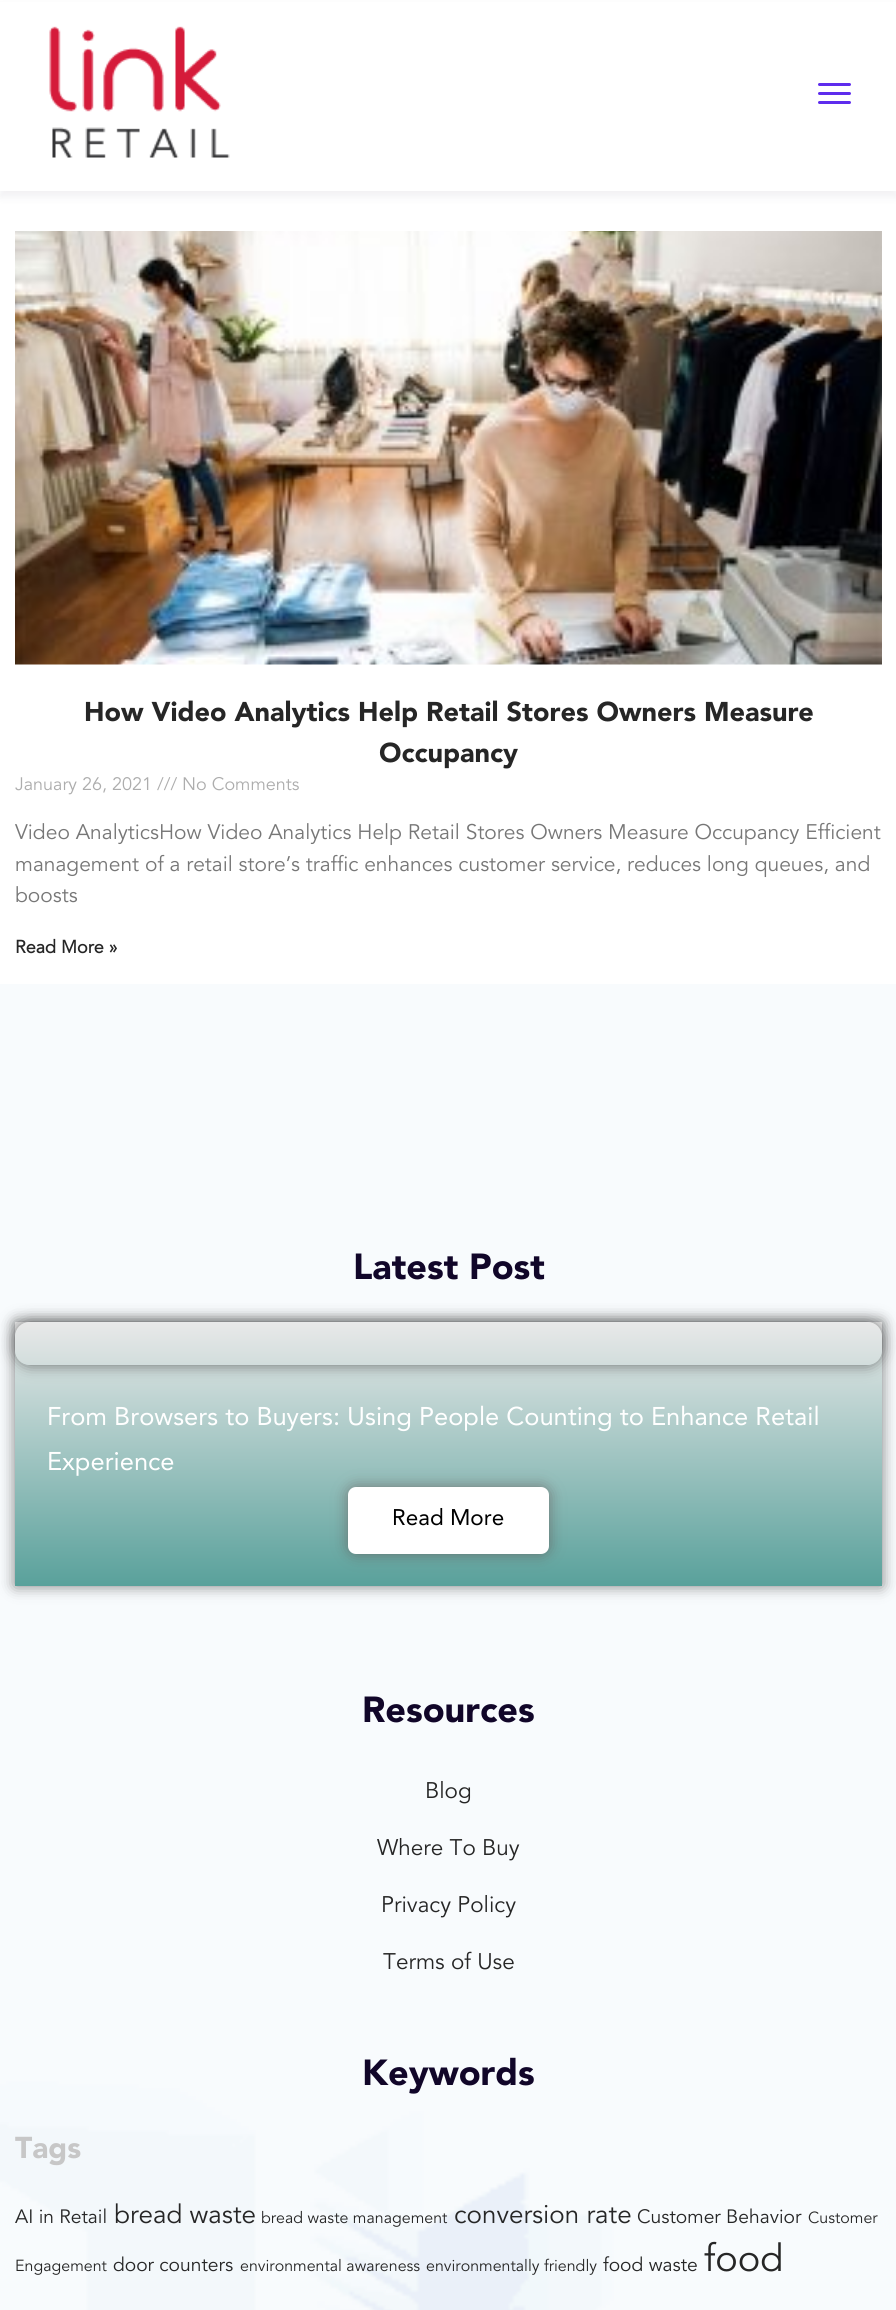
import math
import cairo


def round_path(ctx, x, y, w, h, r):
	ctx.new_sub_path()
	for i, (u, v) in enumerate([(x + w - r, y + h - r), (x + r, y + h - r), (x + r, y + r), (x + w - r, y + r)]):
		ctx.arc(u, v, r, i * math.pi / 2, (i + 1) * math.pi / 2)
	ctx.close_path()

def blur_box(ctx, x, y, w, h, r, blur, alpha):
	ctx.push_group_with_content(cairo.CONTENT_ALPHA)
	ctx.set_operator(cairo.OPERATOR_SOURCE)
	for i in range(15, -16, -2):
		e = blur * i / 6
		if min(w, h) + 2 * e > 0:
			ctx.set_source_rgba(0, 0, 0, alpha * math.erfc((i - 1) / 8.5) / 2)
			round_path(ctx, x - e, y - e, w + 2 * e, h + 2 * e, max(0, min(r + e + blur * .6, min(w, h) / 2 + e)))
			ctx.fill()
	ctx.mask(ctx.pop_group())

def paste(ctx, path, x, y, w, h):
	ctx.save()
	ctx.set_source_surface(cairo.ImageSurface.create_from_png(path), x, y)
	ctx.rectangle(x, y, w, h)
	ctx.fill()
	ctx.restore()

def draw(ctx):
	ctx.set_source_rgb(1, 1, 1)
	ctx.paint()
	ctx.set_source_rgb(0.047, 0, 0.18)
	blur_box(ctx, 0, 6, 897, 191, 0, 4.5, 0.06)
	ctx.set_source_rgb(1, 1, 1)
	ctx.rectangle(0, 2, 896, 189)
	ctx.fill()
	paste(ctx, 'media/1.png', 49, 26, 181, 132)
	ctx.set_source_rgb(0.369, 0.173, 0.929)
	round_path(ctx, 818, 83, 33, 3, 1.5)
	ctx.fill()
	round_path(ctx, 818, 92, 33, 3, 1.5)
	ctx.fill()
	round_path(ctx, 818, 101, 33, 3, 1.5)
	ctx.fill()
	paste(ctx, 'media/2.png', 15, 231, 867, 434)
	ctx.select_font_face('Avenir Black')
	ctx.set_font_size(27)
	ctx.set_source_rgb(0.149, 0.149, 0.149)
	ctx.move_to(84, 721)
	ctx.show_text('How Video Analytics Help Retail Stores Owners Measure')
	ctx.move_to(379, 762)
	ctx.show_text('Occupancy')
	ctx.select_font_face('Avenir')
	ctx.set_font_size(18)
	ctx.set_source_rgb(0.678, 0.678, 0.678)
	ctx.move_to(15, 790)
	ctx.show_text('January 26, 2021 /// No Comments')
	ctx.set_font_size(21)
	ctx.set_source_rgb(0.467, 0.467, 0.467)
	for x, y, s in [
		(15, 839, 'Video AnalyticsHow Video Analytics Help Retail Stores Owners Measure Occupancy Efficient'),
		(15, 871, 'management of a retail store’s traffic enhances customer service, reduces long queues, and'),
		(15, 902, 'boosts'),
	]:
		ctx.move_to(x, y)
		ctx.show_text(s)
	ctx.select_font_face('Avenir', cairo.FONT_SLANT_NORMAL, cairo.FONT_WEIGHT_BOLD)
	ctx.set_font_size(18)
	ctx.set_source_rgb(0.149, 0.149, 0.149)
	ctx.move_to(15, 953)
	ctx.show_text('Read More »')
	paste(ctx, 'media/3.png', 0, 984, 896, 1326)
	ctx.select_font_face('Avenir Black')
	ctx.set_font_size(36)
	ctx.set_source_rgb(0.067, 0.027, 0.161)
	ctx.move_to(353, 1279)
	ctx.show_text('Latest Post')
	ctx.set_source_rgb(0, 0, 0)
	blur_box(ctx, 15, 1322, 867, 264, 0, 7.5, 0.5)
	gradient = cairo.LinearGradient(449, 1322, 449, 1586)
	gradient.add_color_stop_rgba(0, 0.914, 0.914, 0.914, 1)
	gradient.add_color_stop_rgba(1, 0.349, 0.631, 0.608, 1)
	ctx.set_source(gradient)
	ctx.rectangle(15, 1322, 867, 264)
	ctx.fill()
	ctx.save()
	ctx.set_fill_rule(cairo.FILL_RULE_EVEN_ODD)
	ctx.new_path()
	ctx.move_to(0, 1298)
	ctx.line_to(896, 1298)
	ctx.line_to(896, 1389)
	ctx.line_to(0, 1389)
	ctx.close_path()
	ctx.move_to(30, 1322)
	ctx.line_to(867, 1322)
	ctx.curve_to(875.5, 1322, 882, 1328.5, 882, 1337)
	ctx.line_to(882, 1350)
	ctx.curve_to(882, 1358.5, 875.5, 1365, 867, 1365)
	ctx.line_to(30, 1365)
	ctx.curve_to(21.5, 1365, 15, 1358.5, 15, 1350)
	ctx.line_to(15, 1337)
	ctx.curve_to(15, 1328.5, 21.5, 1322, 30, 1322)
	ctx.close_path()
	ctx.clip()
	ctx.set_source_rgb(0, 0, 0)
	blur_box(ctx, 15, 1322, 867, 43, 15, 7.5, 0.5)
	ctx.restore()
	ctx.select_font_face('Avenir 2')
	ctx.set_font_size(25.5)
	ctx.set_source_rgb(1, 1, 1)
	ctx.move_to(47, 1425)
	ctx.show_text('From Browsers to Buyers: Using People Counting to Enhance Retail')
	ctx.move_to(47, 1470)
	ctx.show_text('Experience')
	ctx.set_source_rgb(0.357, 0.204, 0.204)
	blur_box(ctx, 348, 1487, 201, 67, 8, 7.5, 0.5)
	ctx.set_source_rgb(1, 1, 1)
	round_path(ctx, 348, 1487, 201, 67, 8)
	ctx.fill()
	ctx.set_font_size(22.5)
	ctx.set_source_rgb(0, 0, 0)
	ctx.move_to(392, 1525)
	ctx.show_text('Read More')
	ctx.select_font_face('Avenir Black')
	ctx.set_font_size(36)
	ctx.set_source_rgb(0.067, 0.027, 0.161)
	ctx.move_to(362, 1722)
	ctx.show_text('Resources')
	ctx.select_font_face('Avenir')
	ctx.set_font_size(22.5)
	ctx.set_source_rgb(0.149, 0.149, 0.149)
	for x, y, s in [
		(425, 1798, 'Blog'),
		(377, 1855, 'Where To Buy'),
		(381, 1912, 'Privacy Policy'),
		(383, 1969, 'Terms of Use'),
	]:
		ctx.move_to(x, y)
		ctx.show_text(s)
	ctx.select_font_face('Avenir Black')
	ctx.set_font_size(36)
	ctx.set_source_rgb(0.067, 0.027, 0.161)
	ctx.move_to(362, 2085)
	ctx.show_text('Keywords')
	ctx.set_font_size(30)
	ctx.set_source_rgb(0.78, 0.78, 0.78)
	ctx.move_to(15, 2158)
	ctx.show_text('Tags')
	ctx.select_font_face('Avenir')
	ctx.set_font_size(19.25)
	ctx.set_source_rgb(0.149, 0.149, 0.149)
	ctx.move_to(15, 2223)
	ctx.show_text('AI in Retail')
	ctx.set_font_size(26)
	ctx.move_to(114, 2223)
	ctx.show_text('bread waste')
	ctx.set_font_size(16)
	ctx.move_to(261, 2223)
	ctx.show_text('bread waste management')
	ctx.set_font_size(26)
	ctx.move_to(454, 2223)
	ctx.show_text('conversion rate')
	ctx.set_font_size(19.25)
	ctx.move_to(637, 2223)
	ctx.show_text('Customer Behavior')
	ctx.set_font_size(16)
	ctx.move_to(808, 2223)
	ctx.show_text('Customer')
	ctx.move_to(15, 2271)
	ctx.show_text('Engagement')
	ctx.set_font_size(19.25)
	ctx.move_to(113, 2271)
	ctx.show_text('door counters')
	ctx.set_font_size(16)
	ctx.move_to(240, 2271)
	ctx.show_text('environmental awareness')
	ctx.move_to(426, 2271)
	ctx.show_text('environmentally friendly')
	ctx.set_font_size(19.25)
	ctx.move_to(603, 2271)
	ctx.show_text('food waste')
	ctx.set_font_size(38)
	ctx.move_to(704, 2271)
	ctx.show_text('food')


surface = cairo.ImageSurface(cairo.FORMAT_RGB24, 896, 2310)
ctx = cairo.Context(surface)
options = cairo.FontOptions()
options.set_hint_metrics(cairo.HINT_METRICS_OFF)
options.set_hint_style(cairo.HINT_STYLE_NONE)
ctx.set_font_options(options)
ctx.set_miter_limit(4)
draw(ctx)
surface.write_to_png('image.png')
